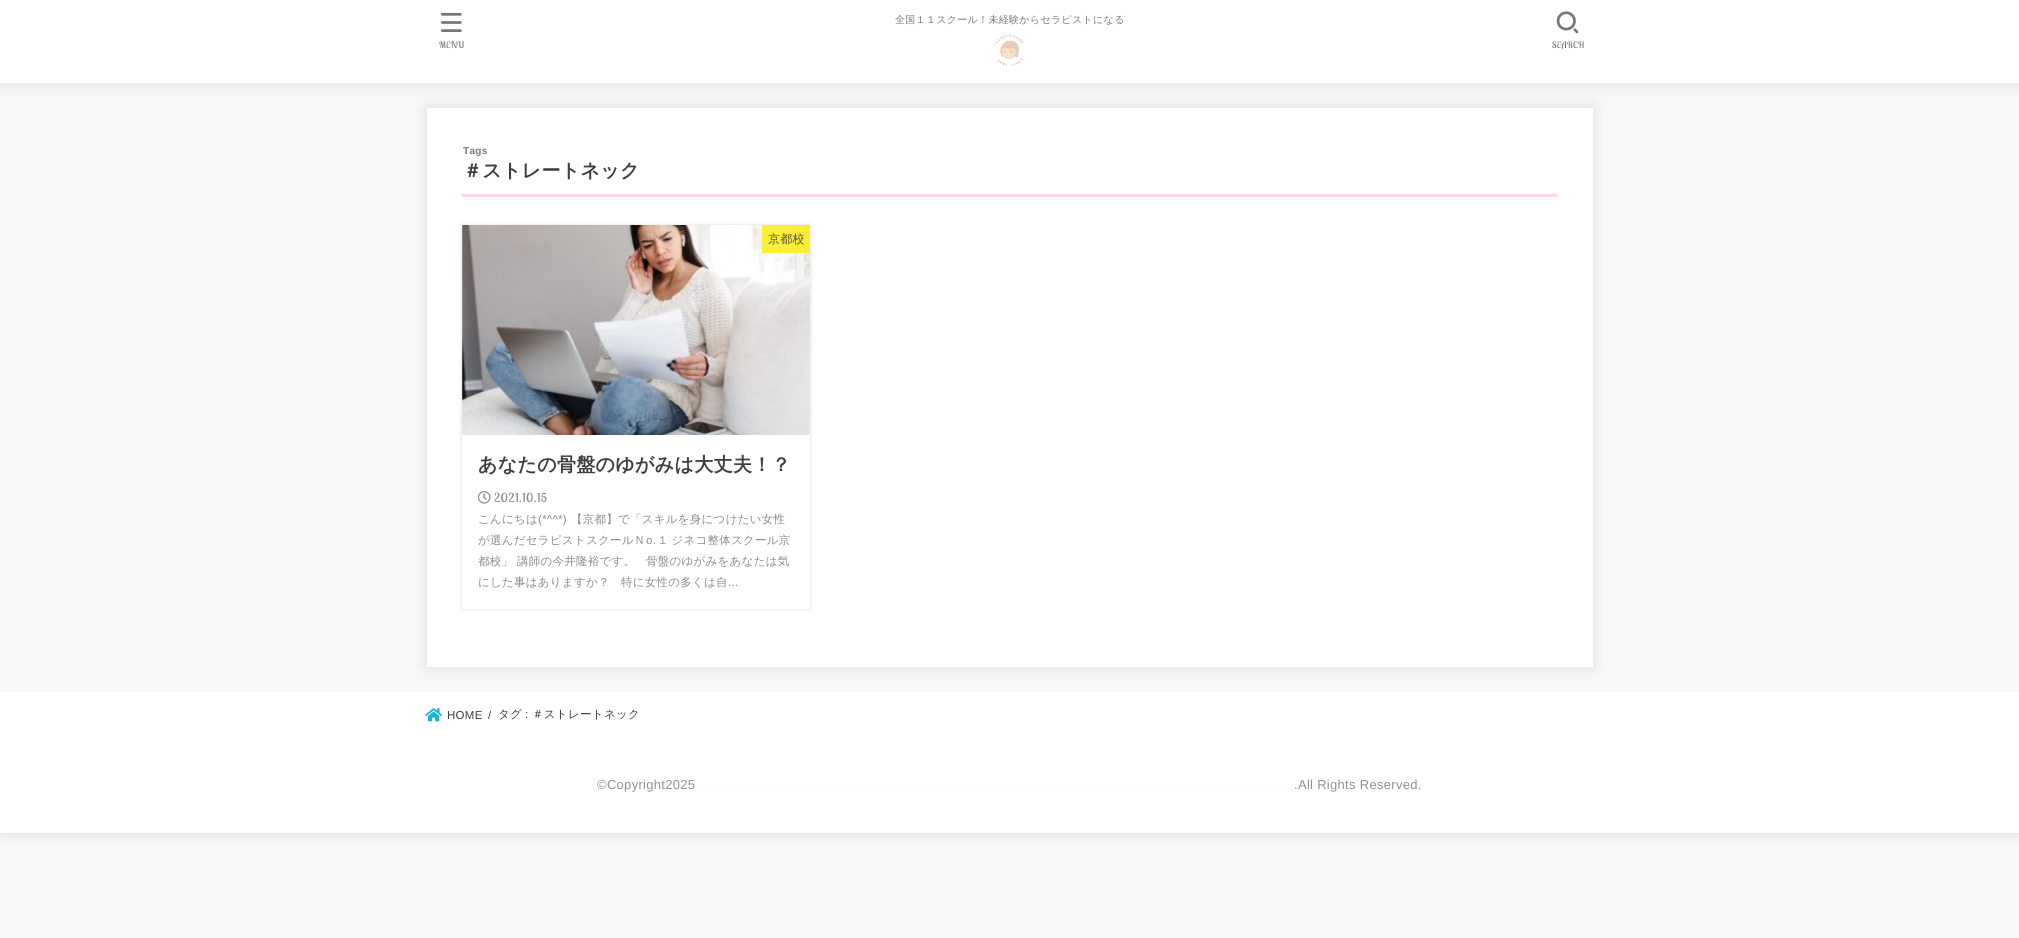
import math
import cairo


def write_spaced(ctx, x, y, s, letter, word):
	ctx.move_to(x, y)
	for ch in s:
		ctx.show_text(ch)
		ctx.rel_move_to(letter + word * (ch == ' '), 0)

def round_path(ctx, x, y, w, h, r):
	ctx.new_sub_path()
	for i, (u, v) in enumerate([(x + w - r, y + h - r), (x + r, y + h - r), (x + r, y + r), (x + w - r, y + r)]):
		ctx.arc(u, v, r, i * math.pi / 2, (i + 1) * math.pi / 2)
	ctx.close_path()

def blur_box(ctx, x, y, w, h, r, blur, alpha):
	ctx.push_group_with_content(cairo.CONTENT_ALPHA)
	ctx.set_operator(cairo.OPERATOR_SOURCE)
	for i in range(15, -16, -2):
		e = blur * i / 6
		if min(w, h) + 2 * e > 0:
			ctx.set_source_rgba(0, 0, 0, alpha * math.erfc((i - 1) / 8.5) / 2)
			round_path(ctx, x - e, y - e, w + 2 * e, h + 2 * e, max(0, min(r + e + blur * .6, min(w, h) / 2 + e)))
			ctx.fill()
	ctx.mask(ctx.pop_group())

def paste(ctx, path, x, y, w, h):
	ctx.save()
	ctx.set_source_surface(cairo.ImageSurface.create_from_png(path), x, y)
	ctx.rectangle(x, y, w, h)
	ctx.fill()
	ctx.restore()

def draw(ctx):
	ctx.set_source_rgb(0.969, 0.969, 0.969)
	ctx.paint()
	ctx.set_source_rgb(0.4, 0.4, 0.4)
	blur_box(ctx, 0, 0, 2019, 83, 0, 7.5, 0.2)
	ctx.set_source_rgb(1, 1, 1)
	ctx.rectangle(0, 0, 2019, 83)
	ctx.fill()
	ctx.select_font_face('WenQuanYi Zen Hei Medium')
	ctx.set_font_size(10)
	ctx.set_source_rgb(0.471, 0.471, 0.471)
	write_spaced(ctx, 895, 23, '全国１１スクール！未経験からセラピストになる', 0.3, 0)
	paste(ctx, 'media/1.png', 996, 34, 28, 33)
	paste(ctx, 'media/2.png', 440, 12, 22, 20)
	ctx.select_font_face('Lobster Two')
	ctx.set_font_size(9)
	write_spaced(ctx, 439, 48, 'MENU', 0.3, 0)
	paste(ctx, 'media/3.png', 1556, 11, 23, 23)
	write_spaced(ctx, 1552, 48, 'SEARCH', 0.3, 0)
	ctx.set_source_rgb(0.4, 0.4, 0.4)
	blur_box(ctx, 427, 108, 1166, 559, 0, 7.5, 0.2)
	ctx.set_source_rgb(1, 1, 1)
	ctx.rectangle(427, 108, 1166, 559)
	ctx.fill()
	ctx.set_source_rgb(1, 0.847, 0.867)
	ctx.rectangle(462, 194, 1096, 3)
	ctx.fill()
	ctx.select_font_face('Liberation Sans', cairo.FONT_SLANT_NORMAL, cairo.FONT_WEIGHT_BOLD)
	ctx.set_font_size(10)
	ctx.set_source_rgb(0.471, 0.471, 0.471)
	write_spaced(ctx, 463, 154, 'Tags', 0.3, 0)
	ctx.select_font_face('WenQuanYi Zen Hei', cairo.FONT_SLANT_NORMAL, cairo.FONT_WEIGHT_BOLD)
	ctx.set_font_size(19)
	ctx.set_source_rgb(0.243, 0.243, 0.243)
	write_spaced(ctx, 463, 177, '＃ストレートネック', 0.3, 0)
	ctx.save()
	ctx.set_fill_rule(cairo.FILL_RULE_EVEN_ODD)
	ctx.new_path()
	ctx.move_to(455, 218)
	ctx.line_to(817, 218)
	ctx.line_to(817, 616)
	ctx.line_to(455, 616)
	ctx.close_path()
	ctx.move_to(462, 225)
	ctx.line_to(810, 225)
	ctx.line_to(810, 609)
	ctx.line_to(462, 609)
	ctx.close_path()
	ctx.clip()
	ctx.set_source_rgb(0, 0, 0)
	blur_box(ctx, 462, 225, 348, 384, 0, 2, 0.15)
	ctx.restore()
	paste(ctx, 'media/4.png', 462, 225, 348, 210)
	ctx.set_source_rgba(0.988, 0.933, 0.129, 0.88)
	ctx.rectangle(762, 225, 48, 28)
	ctx.fill()
	ctx.select_font_face('WenQuanYi Zen Hei Medium')
	ctx.set_font_size(12)
	ctx.set_source_rgb(0.333, 0.325, 0.239)
	write_spaced(ctx, 768, 243, '京都校', 0.3, 0)
	ctx.select_font_face('WenQuanYi Zen Hei', cairo.FONT_SLANT_NORMAL, cairo.FONT_WEIGHT_BOLD)
	ctx.set_font_size(19)
	ctx.set_source_rgb(0.243, 0.243, 0.243)
	write_spaced(ctx, 478, 471, 'あなたの骨盤のゆがみは大丈夫！？', 0.3, 0)
	paste(ctx, 'media/5.png', 477, 491, 14, 13)
	ctx.select_font_face('Lobster Two')
	ctx.set_font_size(12.5)
	ctx.set_source_rgb(0.545, 0.545, 0.545)
	write_spaced(ctx, 494, 502, '2021.10.15', 0.3, 0)
	ctx.select_font_face('WenQuanYi Zen Hei Medium')
	ctx.set_font_size(11.5)
	write_spaced(ctx, 478, 523, 'こんにちは', 0.25, 0)
	ctx.select_font_face('Liberation Sans')
	write_spaced(ctx, 538, 523, '(*^^*)', 0.25, 0)
	ctx.select_font_face('WenQuanYi Zen Hei Medium')
	write_spaced(ctx, 571, 523, '【京都】で「スキルを身につけたい女性', 0.25, 0)
	write_spaced(ctx, 478, 544, 'が選んだセラピストスクールＮ', 0.25, 0)
	ctx.select_font_face('Liberation Sans')
	write_spaced(ctx, 646, 544, 'о.', 0.25, 0)
	ctx.select_font_face('WenQuanYi Zen Hei Medium')
	write_spaced(ctx, 657, 544, '１ ジネコ整体スクール京', 0.25, -1)
	for x, y, s in [
		(478, 565, '都校」 講師の今井隆裕です。'),
		(646, 565, '骨盤のゆがみをあなたは気'),
		(478, 586, 'にした事はありますか？'),
		(621, 586, '特に女性の多くは自'),
	]:
		write_spaced(ctx, x, y, s, 0.25, 0)
	ctx.select_font_face('Liberation Sans')
	write_spaced(ctx, 728, 586, '...', 0.25, 0)
	ctx.set_source_rgb(0.4, 0.4, 0.4)
	blur_box(ctx, 0, 738, 2019, 95, 0, 7.5, 0.2)
	ctx.set_source_rgb(1, 1, 1)
	ctx.rectangle(0, 692, 2019, 141)
	ctx.fill()
	paste(ctx, 'media/6.png', 425, 708, 17, 14)
	ctx.set_source_rgb(0.243, 0.243, 0.243)
	write_spaced(ctx, 447, 719, 'HOME', 0.3, 0)
	write_spaced(ctx, 488, 719, '/', 0.3, 0)
	ctx.select_font_face('WenQuanYi Zen Hei Medium')
	write_spaced(ctx, 498, 718, 'タグ', 0.3, 0)
	ctx.select_font_face('Liberation Sans')
	write_spaced(ctx, 525, 718, ':', 0.3, 0)
	ctx.select_font_face('WenQuanYi Zen Hei Medium')
	write_spaced(ctx, 532, 718, '＃ストレートネック', 0.3, 0)
	ctx.select_font_face('Liberation Sans')
	ctx.set_font_size(13)
	ctx.set_source_rgb(0.569, 0.569, 0.569)
	write_spaced(ctx, 597, 789, '©Copyright2025', 0.3, 0)
	ctx.set_source_rgb(0.969, 0.969, 0.969)
	ctx.rectangle(699, 790, 595, 1)
	ctx.fill()
	ctx.set_source_rgb(0.569, 0.569, 0.569)
	write_spaced(ctx, 1294, 789, '.All Rights Reserved.', 0.3, 0)


surface = cairo.ImageSurface(cairo.FORMAT_RGB24, 2019, 938)
ctx = cairo.Context(surface)
options = cairo.FontOptions()
options.set_hint_metrics(cairo.HINT_METRICS_OFF)
options.set_hint_style(cairo.HINT_STYLE_NONE)
ctx.set_font_options(options)
ctx.set_miter_limit(4)
draw(ctx)
surface.write_to_png('image.png')
